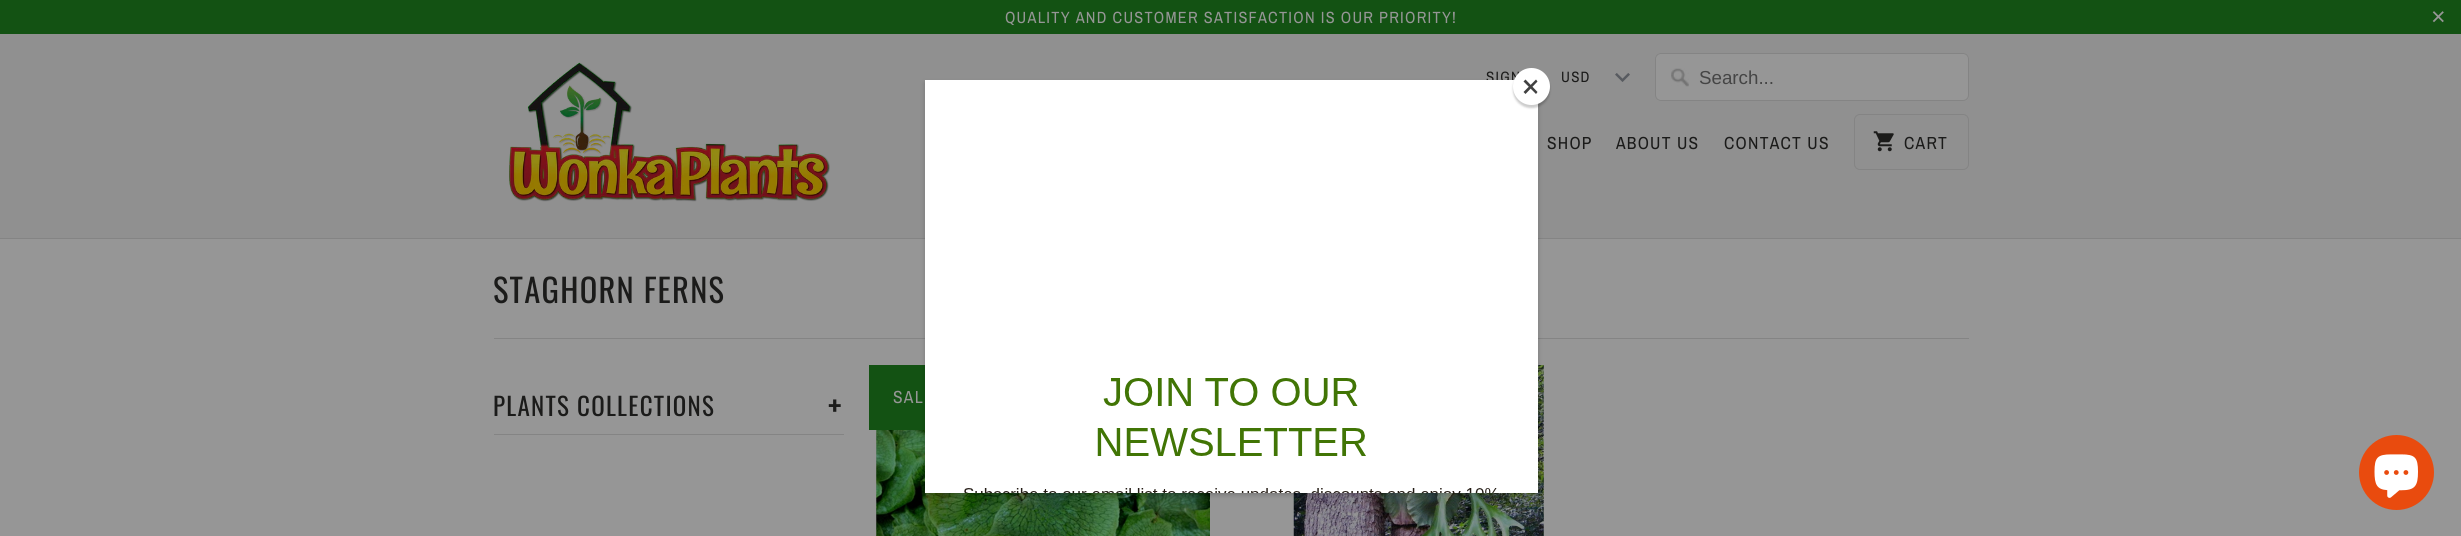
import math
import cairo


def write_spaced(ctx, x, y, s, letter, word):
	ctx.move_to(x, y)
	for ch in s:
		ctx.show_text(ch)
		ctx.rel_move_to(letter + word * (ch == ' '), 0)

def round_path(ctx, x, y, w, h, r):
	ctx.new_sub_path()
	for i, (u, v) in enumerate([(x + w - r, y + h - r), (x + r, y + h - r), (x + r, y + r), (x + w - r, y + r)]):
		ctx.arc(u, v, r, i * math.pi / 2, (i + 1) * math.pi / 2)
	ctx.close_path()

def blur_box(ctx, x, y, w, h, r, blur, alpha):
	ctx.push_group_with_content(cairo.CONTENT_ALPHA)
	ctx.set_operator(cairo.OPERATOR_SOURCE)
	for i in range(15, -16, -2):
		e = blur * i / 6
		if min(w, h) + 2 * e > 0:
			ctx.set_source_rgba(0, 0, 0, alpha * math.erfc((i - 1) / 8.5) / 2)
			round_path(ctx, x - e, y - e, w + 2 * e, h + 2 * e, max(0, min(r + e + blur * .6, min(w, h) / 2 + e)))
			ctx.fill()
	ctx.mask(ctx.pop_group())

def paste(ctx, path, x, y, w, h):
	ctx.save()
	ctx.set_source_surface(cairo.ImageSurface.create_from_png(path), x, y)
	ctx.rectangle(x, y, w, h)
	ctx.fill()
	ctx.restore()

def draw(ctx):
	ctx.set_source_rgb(0.588, 0.588, 0.588)
	ctx.paint()
	ctx.set_source_rgb(0.078, 0.322, 0.078)
	ctx.rectangle(0, 0, 2461, 34)
	ctx.fill()
	ctx.select_font_face('Archivo Narrow')
	ctx.set_font_size(16.25)
	ctx.set_source_rgb(0.588, 0.588, 0.588)
	write_spaced(ctx, 1005, 23, 'QUALITY AND CUSTOMER SATISFACTION IS OUR PRIORITY!', 1.25, 0)
	ctx.select_font_face('Liberation Sans')
	ctx.set_font_size(25)
	write_spaced(ctx, 2431, 25, '×', 1.25, 0)
	ctx.set_source_rgb(0.565, 0.565, 0.565)
	ctx.rectangle(0, 34, 2461, 204)
	ctx.fill()
	ctx.set_source_rgb(0.518, 0.518, 0.518)
	ctx.rectangle(0, 238, 2461, 1)
	ctx.fill()
	paste(ctx, 'media/1.png', 509, 62, 321, 140)
	ctx.select_font_face('Archivo Narrow')
	ctx.set_font_size(15)
	ctx.set_source_rgb(0.106, 0.106, 0.102)
	write_spaced(ctx, 1486, 82, 'SIGN', 1.25, 0)
	paste(ctx, 'media/2.png', 1615, 73, 15, 9)
	write_spaced(ctx, 1561, 82, 'USD', 1.25, 0)
	ctx.set_source_rgb(0.588, 0.588, 0.588)
	round_path(ctx, 1655, 53, 314, 48, 6)
	ctx.fill()
	paste(ctx, 'media/3.png', 1671, 68, 18, 19)
	round_path(ctx, 1655.5, 53.5, 313, 47, 5.5)
	ctx.set_source_rgb(0.518, 0.518, 0.518)
	ctx.set_line_width(1)
	ctx.stroke()
	ctx.select_font_face('Liberation Sans')
	ctx.set_font_size(18.75)
	ctx.set_source_rgb(0.271, 0.271, 0.271)
	ctx.move_to(1699, 84)
	ctx.show_text('Search...')
	ctx.select_font_face('Archivo Narrow')
	ctx.set_font_size(17.5)
	ctx.set_source_rgb(0.106, 0.106, 0.102)
	for x, y, s in [
		(1547, 149, 'SHOP'),
		(1616, 149, 'ABOUT US'),
		(1724, 149, 'CONTACT US'),
	]:
		write_spaced(ctx, x, y, s, 1.25, 0)
	round_path(ctx, 1854.5, 114.5, 114, 55, 5.5)
	ctx.set_source_rgb(0.518, 0.518, 0.518)
	ctx.stroke()
	paste(ctx, 'media/4.png', 1873, 131, 21, 21)
	ctx.set_source_rgb(0.106, 0.106, 0.102)
	write_spaced(ctx, 1904, 149, 'CART', 1.25, 0)
	ctx.set_source_rgb(0.518, 0.518, 0.518)
	ctx.rectangle(494, 338, 1475, 1)
	ctx.fill()
	ctx.select_font_face('Oswald')
	ctx.set_font_size(32.5)
	ctx.set_source_rgb(0.106, 0.106, 0.102)
	write_spaced(ctx, 493, 303, 'STAGHORN FERNS', 1.25, 0)
	ctx.set_source_rgb(0.518, 0.518, 0.518)
	ctx.rectangle(494, 434, 350, 1)
	ctx.fill()
	ctx.set_font_size(25)
	ctx.set_source_rgb(0.106, 0.106, 0.102)
	write_spaced(ctx, 493, 416, 'PLANTS COLLECTIONS', 1.25, 0)
	ctx.select_font_face('Oswald', cairo.FONT_SLANT_NORMAL, cairo.FONT_WEIGHT_BOLD)
	ctx.set_font_size(30)
	write_spaced(ctx, 828, 418, '+', 1.25, 0)
	ctx.set_source_rgb(0.078, 0.322, 0.078)
	ctx.rectangle(869, 365, 56, 65)
	ctx.fill()
	ctx.select_font_face('Archivo Narrow')
	ctx.set_font_size(17.5)
	ctx.set_source_rgb(0.588, 0.588, 0.588)
	write_spaced(ctx, 893, 403, 'SAL', 1.25, 0)
	paste(ctx, 'media/5.png', 876, 430, 334, 106)
	paste(ctx, 'media/6.png', 1293, 365, 251, 171)
	ctx.set_source_rgb(0, 0, 0)
	blur_box(ctx, 925, 83, 613, 412, 0, 2.5, 0.2)
	paste(ctx, 'media/7.png', 925, 80, 613, 413)
	blur_box(ctx, 1513, 70, 37, 38, 18.5, 1, 0.2)
	ctx.set_source_rgb(1, 1, 1)
	ctx.arc(1531.5, 86.5, 18.5, 0, 2 * math.pi)
	ctx.fill()
	ctx.set_source_rgb(0.255, 0.255, 0.255)
	ctx.new_path()
	ctx.move_to(1536, 79.5)
	ctx.line_to(1537.5, 81.5)
	ctx.line_to(1525.5, 94)
	ctx.line_to(1523.5, 92)
	ctx.close_path()
	ctx.fill()
	ctx.new_path()
	ctx.move_to(1523.5, 81.5)
	ctx.line_to(1525.5, 79.5)
	ctx.line_to(1537.5, 92)
	ctx.line_to(1536, 94)
	ctx.close_path()
	ctx.fill()
	ctx.set_source_rgb(0.914, 0.294, 0.055)
	ctx.arc(2396.5, 472.5, 37.5, 0, 2 * math.pi)
	ctx.fill()
	paste(ctx, 'media/8.png', 2374, 454, 44, 44)


surface = cairo.ImageSurface(cairo.FORMAT_RGB24, 2461, 536)
ctx = cairo.Context(surface)
options = cairo.FontOptions()
options.set_hint_metrics(cairo.HINT_METRICS_OFF)
options.set_hint_style(cairo.HINT_STYLE_NONE)
ctx.set_font_options(options)
ctx.set_miter_limit(4)
draw(ctx)
surface.write_to_png('image.png')
